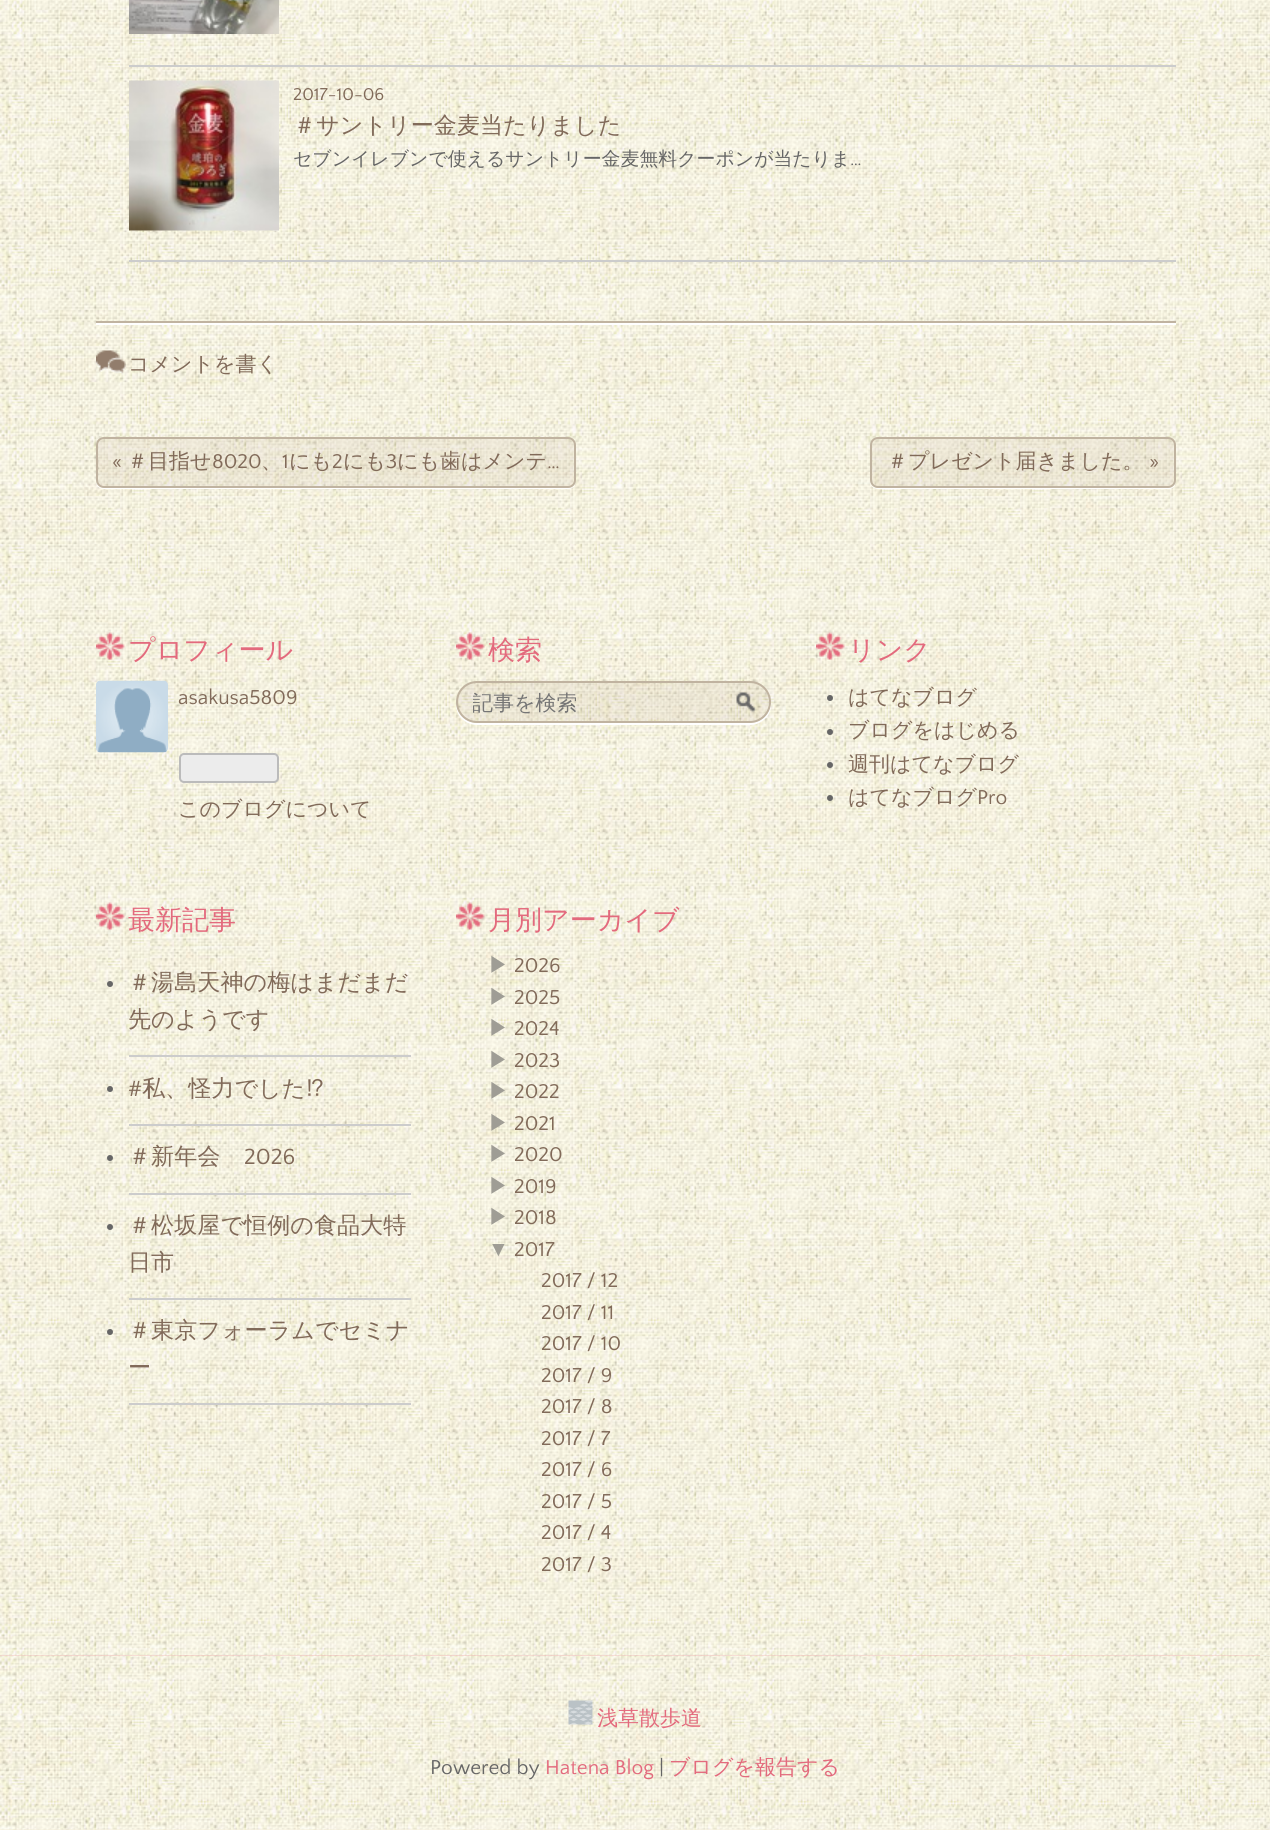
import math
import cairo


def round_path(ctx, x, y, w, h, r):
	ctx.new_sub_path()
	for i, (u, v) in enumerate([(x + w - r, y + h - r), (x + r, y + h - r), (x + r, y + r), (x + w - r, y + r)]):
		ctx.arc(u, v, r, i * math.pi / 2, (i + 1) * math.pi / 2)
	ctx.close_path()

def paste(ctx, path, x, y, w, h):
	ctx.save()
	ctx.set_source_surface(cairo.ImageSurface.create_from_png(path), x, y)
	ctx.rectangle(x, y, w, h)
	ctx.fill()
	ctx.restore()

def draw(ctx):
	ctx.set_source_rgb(1, 1, 1)
	ctx.paint()
	paste(ctx, 'media/1.png', 0, 1655, 1260, 1)
	paste(ctx, 'media/2.png', 0, 0, 1270, 1656)
	ctx.set_source_rgb(0.8, 0.8, 0.8)
	ctx.rectangle(129, 65, 1047, 2)
	ctx.fill()
	paste(ctx, 'media/3.png', 129, 0, 150, 34)
	ctx.rectangle(129, 260, 1047, 2)
	ctx.fill()
	paste(ctx, 'media/4.png', 129, 80, 150, 151)
	ctx.select_font_face('Quattrocento Sans')
	ctx.set_font_size(18)
	ctx.set_source_rgb(0.506, 0.416, 0.349)
	ctx.move_to(293, 100)
	ctx.show_text('2017-10-06')
	ctx.select_font_face('WenQuanYi Zen Hei Medium')
	ctx.set_font_size(23.1)
	ctx.move_to(293, 133)
	ctx.show_text('＃サントリー金麦当たりました')
	ctx.set_font_size(18.9)
	ctx.set_source_rgb(0.4, 0.4, 0.4)
	ctx.move_to(293, 165)
	ctx.show_text('セブンイレブンで使えるサントリー金麦無料クーポンが当たりま')
	ctx.select_font_face('Quattrocento Sans')
	ctx.move_to(850, 165)
	ctx.show_text('…')
	ctx.set_source_rgb(1, 1, 1)
	ctx.rectangle(96, 323, 1080, 2)
	ctx.fill()
	ctx.set_source_rgb(0.753, 0.702, 0.627)
	ctx.rectangle(96, 321, 1080, 2)
	ctx.fill()
	paste(ctx, 'media/5.png', 96, 350, 30, 25)
	ctx.select_font_face('WenQuanYi Zen Hei Medium')
	ctx.set_font_size(21)
	ctx.set_source_rgb(0.506, 0.416, 0.349)
	ctx.move_to(128, 371)
	ctx.show_text('コメントを書く')
	ctx.set_source_rgb(1, 1, 1)
	ctx.new_path()
	ctx.move_to(96, 480)
	ctx.curve_to(96, 485, 99, 489, 104, 489)
	ctx.line_to(568, 489)
	ctx.curve_to(573, 489, 576, 485, 576, 480)
	ctx.curve_to(576, 484, 573, 488, 568, 488)
	ctx.line_to(104, 488)
	ctx.curve_to(99, 488, 96, 484, 96, 480)
	ctx.close_path()
	ctx.fill()
	ctx.set_source_rgba(0.651, 0.576, 0.486, 0.12)
	round_path(ctx, 97, 438, 478, 49, 7)
	ctx.fill_preserve()
	ctx.set_source_rgb(0.753, 0.702, 0.627)
	ctx.stroke()
	ctx.select_font_face('Quattrocento Sans')
	ctx.set_source_rgb(0.506, 0.416, 0.349)
	ctx.move_to(112, 468)
	ctx.show_text('«')
	ctx.select_font_face('WenQuanYi Zen Hei Medium')
	ctx.move_to(127, 468)
	ctx.show_text('＃目指せ')
	ctx.select_font_face('Quattrocento Sans')
	ctx.move_to(212, 468)
	ctx.show_text('8020')
	ctx.move_to(282, 468)
	ctx.show_text('1')
	ctx.select_font_face('WenQuanYi Zen Hei Medium')
	ctx.move_to(289, 468)
	ctx.show_text('にも')
	ctx.select_font_face('Quattrocento Sans')
	ctx.move_to(332, 468)
	ctx.show_text('2')
	ctx.select_font_face('WenQuanYi Zen Hei Medium')
	ctx.move_to(343, 468)
	ctx.show_text('にも')
	ctx.select_font_face('Quattrocento Sans')
	ctx.move_to(386, 468)
	ctx.show_text('3')
	ctx.select_font_face('WenQuanYi Zen Hei Medium')
	ctx.move_to(397, 468)
	ctx.show_text('にも歯はメンテ')
	ctx.move_to(261, 468)
	ctx.show_text('、')
	ctx.select_font_face('Quattrocento Sans')
	ctx.move_to(547, 468)
	ctx.show_text('…')
	ctx.set_source_rgb(1, 1, 1)
	ctx.new_path()
	ctx.move_to(870, 480)
	ctx.curve_to(870, 485, 873, 489, 878, 489)
	ctx.line_to(1170, 489)
	ctx.curve_to(1174, 488, 1176, 484, 1176, 480)
	ctx.curve_to(1176, 484, 1173, 488, 1168, 488)
	ctx.line_to(878, 488)
	ctx.curve_to(873, 488, 870, 484, 870, 480)
	ctx.close_path()
	ctx.fill()
	ctx.set_source_rgba(0.651, 0.576, 0.486, 0.12)
	round_path(ctx, 871, 438, 304, 49, 7)
	ctx.fill_preserve()
	ctx.set_source_rgb(0.753, 0.702, 0.627)
	ctx.stroke()
	ctx.select_font_face('WenQuanYi Zen Hei Medium')
	ctx.set_source_rgb(0.506, 0.416, 0.349)
	ctx.move_to(887, 468)
	ctx.show_text('＃プレゼント届きました。')
	ctx.select_font_face('Quattrocento Sans')
	ctx.move_to(1149, 468)
	ctx.show_text('»')
	paste(ctx, 'media/6.png', 96, 632, 29, 28)
	ctx.select_font_face('WenQuanYi Zen Hei Medium')
	ctx.set_font_size(27)
	ctx.set_source_rgb(0.89, 0.416, 0.49)
	ctx.move_to(128, 659)
	ctx.show_text('プロフィール')
	paste(ctx, 'media/7.png', 96, 680, 72, 73)
	ctx.select_font_face('Quattrocento Sans')
	ctx.set_font_size(21)
	ctx.set_source_rgb(0.506, 0.416, 0.349)
	ctx.move_to(178, 704)
	ctx.show_text('asakusa5809')
	ctx.set_source_rgb(0.922, 0.922, 0.922)
	round_path(ctx, 180, 754, 98, 28, 4)
	ctx.fill_preserve()
	ctx.set_source_rgb(0.733, 0.733, 0.733)
	ctx.stroke()
	ctx.select_font_face('WenQuanYi Zen Hei Medium')
	ctx.set_source_rgb(0.506, 0.416, 0.349)
	ctx.move_to(178, 816)
	ctx.show_text('このブログについて')
	paste(ctx, 'media/8.png', 456, 632, 29, 28)
	ctx.set_font_size(27)
	ctx.set_source_rgb(0.89, 0.416, 0.49)
	ctx.move_to(488, 659)
	ctx.show_text('検索')
	ctx.set_source_rgb(1, 1, 1)
	ctx.new_path()
	ctx.move_to(456, 703)
	ctx.curve_to(455, 715, 465, 725, 477, 725)
	ctx.line_to(750, 725)
	ctx.curve_to(762, 725, 772, 715, 771, 703)
	ctx.curve_to(770, 714, 761, 723, 750, 723)
	ctx.line_to(477, 723)
	ctx.curve_to(466, 723, 457, 714, 456, 703)
	ctx.close_path()
	ctx.fill()
	ctx.set_source_rgba(0.651, 0.576, 0.486, 0.12)
	round_path(ctx, 457, 682, 313, 40, 20)
	ctx.fill_preserve()
	ctx.set_source_rgb(0.753, 0.702, 0.627)
	ctx.stroke()
	ctx.save()
	ctx.rectangle(473, 690, 282, 27)
	ctx.clip()
	ctx.set_font_size(21)
	ctx.set_source_rgb(0.459, 0.459, 0.459)
	ctx.move_to(472, 710)
	ctx.show_text('記事を検索')
	ctx.restore()
	paste(ctx, 'media/9.png', 736, 692, 21, 21)
	paste(ctx, 'media/10.png', 816, 632, 29, 28)
	ctx.set_source_rgb(0.89, 0.416, 0.49)
	ctx.move_to(848, 659)
	ctx.show_text('リンク')
	ctx.set_source_rgb(0.4, 0.4, 0.4)
	ctx.new_path()
	ctx.arc(830, 698, 3, 0, 2 * math.pi)
	ctx.fill()
	ctx.set_font_size(21)
	ctx.set_source_rgb(0.506, 0.416, 0.349)
	ctx.move_to(848, 704)
	ctx.show_text('はてなブログ')
	ctx.set_source_rgb(0.4, 0.4, 0.4)
	ctx.new_path()
	ctx.arc(830, 732, 3, 0, 2 * math.pi)
	ctx.fill()
	ctx.set_source_rgb(0.506, 0.416, 0.349)
	ctx.move_to(848, 737)
	ctx.show_text('ブログをはじめる')
	ctx.set_source_rgb(0.4, 0.4, 0.4)
	ctx.new_path()
	ctx.arc(830, 765, 3, 0, 2 * math.pi)
	ctx.fill()
	ctx.set_source_rgb(0.506, 0.416, 0.349)
	ctx.move_to(848, 771)
	ctx.show_text('週刊はてなブログ')
	ctx.set_source_rgb(0.4, 0.4, 0.4)
	ctx.new_path()
	ctx.arc(830, 798, 3, 0, 2 * math.pi)
	ctx.fill()
	ctx.set_source_rgb(0.506, 0.416, 0.349)
	ctx.move_to(848, 804)
	ctx.show_text('はてなブログ')
	ctx.select_font_face('Quattrocento Sans')
	ctx.move_to(977, 804)
	ctx.show_text('Pro')
	paste(ctx, 'media/11.png', 96, 902, 29, 28)
	ctx.select_font_face('WenQuanYi Zen Hei Medium')
	ctx.set_font_size(27)
	ctx.set_source_rgb(0.89, 0.416, 0.49)
	ctx.move_to(128, 929)
	ctx.show_text('最新記事')
	ctx.set_source_rgb(0.8, 0.8, 0.8)
	ctx.rectangle(129, 1055, 282, 2)
	ctx.fill()
	ctx.set_source_rgb(0.4, 0.4, 0.4)
	ctx.arc(110, 984, 3, 0, 2 * math.pi)
	ctx.fill()
	ctx.set_font_size(23.1)
	ctx.set_source_rgb(0.506, 0.416, 0.349)
	ctx.move_to(128, 990)
	ctx.show_text('＃湯島天神の梅はまだまだ')
	ctx.move_to(128, 1027)
	ctx.show_text('先のようです')
	ctx.set_source_rgb(0.8, 0.8, 0.8)
	ctx.rectangle(129, 1124, 282, 2)
	ctx.fill()
	ctx.set_source_rgb(0.4, 0.4, 0.4)
	ctx.arc(110, 1089, 3, 0, 2 * math.pi)
	ctx.fill()
	ctx.select_font_face('Quattrocento Sans')
	ctx.set_source_rgb(0.506, 0.416, 0.349)
	ctx.move_to(128, 1096)
	ctx.show_text('#')
	ctx.select_font_face('WenQuanYi Zen Hei Medium')
	ctx.move_to(142, 1096)
	ctx.show_text('私、怪力でした')
	ctx.select_font_face('IPAPGothic')
	ctx.move_to(306, 1096)
	ctx.show_text('⁉')
	ctx.set_source_rgb(0.8, 0.8, 0.8)
	ctx.rectangle(129, 1193, 282, 2)
	ctx.fill()
	ctx.set_source_rgb(0.4, 0.4, 0.4)
	ctx.arc(110, 1158, 3, 0, 2 * math.pi)
	ctx.fill()
	ctx.select_font_face('WenQuanYi Zen Hei Medium')
	ctx.set_source_rgb(0.506, 0.416, 0.349)
	ctx.move_to(128, 1164)
	ctx.show_text('＃新年会')
	ctx.select_font_face('Quattrocento Sans')
	ctx.move_to(244, 1164)
	ctx.show_text('2026')
	ctx.set_source_rgb(0.8, 0.8, 0.8)
	ctx.rectangle(129, 1298, 282, 2)
	ctx.fill()
	ctx.set_source_rgb(0.4, 0.4, 0.4)
	ctx.arc(110, 1227, 3, 0, 2 * math.pi)
	ctx.fill()
	ctx.select_font_face('WenQuanYi Zen Hei Medium')
	ctx.set_source_rgb(0.506, 0.416, 0.349)
	ctx.move_to(128, 1233)
	ctx.show_text('＃松坂屋で恒例の食品大特')
	ctx.move_to(128, 1270)
	ctx.show_text('日市')
	ctx.set_source_rgb(0.8, 0.8, 0.8)
	ctx.rectangle(129, 1403, 282, 2)
	ctx.fill()
	ctx.set_source_rgb(0.4, 0.4, 0.4)
	ctx.arc(110, 1332, 3, 0, 2 * math.pi)
	ctx.fill()
	ctx.set_source_rgb(0.506, 0.416, 0.349)
	ctx.move_to(128, 1338)
	ctx.show_text('＃東京フォーラムでセミナ')
	ctx.move_to(128, 1375)
	ctx.show_text('ー')
	paste(ctx, 'media/12.png', 456, 902, 29, 28)
	ctx.set_font_size(27)
	ctx.set_source_rgb(0.89, 0.416, 0.49)
	ctx.move_to(488, 929)
	ctx.show_text('月別アーカイブ')
	ctx.set_font_size(21)
	ctx.set_source_rgb(0.624, 0.616, 0.584)
	ctx.move_to(488, 972)
	ctx.show_text('▶')
	ctx.select_font_face('Quattrocento Sans')
	ctx.set_source_rgb(0.506, 0.416, 0.349)
	ctx.move_to(514, 972)
	ctx.show_text('2026')
	ctx.select_font_face('WenQuanYi Zen Hei Medium')
	ctx.set_source_rgb(0.624, 0.616, 0.584)
	ctx.move_to(488, 1004)
	ctx.show_text('▶')
	ctx.select_font_face('Quattrocento Sans')
	ctx.set_source_rgb(0.506, 0.416, 0.349)
	ctx.move_to(514, 1004)
	ctx.show_text('2025')
	ctx.select_font_face('WenQuanYi Zen Hei Medium')
	ctx.set_source_rgb(0.624, 0.616, 0.584)
	ctx.move_to(488, 1035)
	ctx.show_text('▶')
	ctx.select_font_face('Quattrocento Sans')
	ctx.set_source_rgb(0.506, 0.416, 0.349)
	ctx.move_to(514, 1035)
	ctx.show_text('2024')
	ctx.select_font_face('WenQuanYi Zen Hei Medium')
	ctx.set_source_rgb(0.624, 0.616, 0.584)
	ctx.move_to(488, 1067)
	ctx.show_text('▶')
	ctx.select_font_face('Quattrocento Sans')
	ctx.set_source_rgb(0.506, 0.416, 0.349)
	ctx.move_to(514, 1067)
	ctx.show_text('2023')
	ctx.select_font_face('WenQuanYi Zen Hei Medium')
	ctx.set_source_rgb(0.624, 0.616, 0.584)
	ctx.move_to(488, 1098)
	ctx.show_text('▶')
	ctx.select_font_face('Quattrocento Sans')
	ctx.set_source_rgb(0.506, 0.416, 0.349)
	ctx.move_to(514, 1098)
	ctx.show_text('2022')
	ctx.select_font_face('WenQuanYi Zen Hei Medium')
	ctx.set_source_rgb(0.624, 0.616, 0.584)
	ctx.move_to(488, 1130)
	ctx.show_text('▶')
	ctx.select_font_face('Quattrocento Sans')
	ctx.set_source_rgb(0.506, 0.416, 0.349)
	ctx.move_to(514, 1130)
	ctx.show_text('2021')
	ctx.select_font_face('WenQuanYi Zen Hei Medium')
	ctx.set_source_rgb(0.624, 0.616, 0.584)
	ctx.move_to(488, 1161)
	ctx.show_text('▶')
	ctx.select_font_face('Quattrocento Sans')
	ctx.set_source_rgb(0.506, 0.416, 0.349)
	ctx.move_to(514, 1161)
	ctx.show_text('2020')
	ctx.select_font_face('WenQuanYi Zen Hei Medium')
	ctx.set_source_rgb(0.624, 0.616, 0.584)
	ctx.move_to(488, 1193)
	ctx.show_text('▶')
	ctx.select_font_face('Quattrocento Sans')
	ctx.set_source_rgb(0.506, 0.416, 0.349)
	ctx.move_to(514, 1193)
	ctx.show_text('2019')
	ctx.select_font_face('WenQuanYi Zen Hei Medium')
	ctx.set_source_rgb(0.624, 0.616, 0.584)
	ctx.move_to(488, 1224)
	ctx.show_text('▶')
	ctx.select_font_face('Quattrocento Sans')
	ctx.set_source_rgb(0.506, 0.416, 0.349)
	ctx.move_to(514, 1224)
	ctx.show_text('2018')
	ctx.select_font_face('Liberation Sans')
	ctx.set_source_rgb(0.624, 0.616, 0.584)
	ctx.move_to(488, 1256)
	ctx.show_text('▼')
	ctx.select_font_face('Quattrocento Sans')
	ctx.set_source_rgb(0.506, 0.416, 0.349)
	for x, y, s in [
		(514, 1256, '2017'),
		(541, 1287, '2017 / 12'),
		(541, 1319, '2017 / 11'),
		(541, 1350, '2017 / 10'),
		(541, 1382, '2017 / 9'),
		(541, 1413, '2017 / 8'),
		(541, 1445, '2017 / 7'),
		(541, 1476, '2017 / 6'),
		(541, 1508, '2017 / 5'),
		(541, 1539, '2017 / 4'),
		(541, 1571, '2017 / 3'),
	]:
		ctx.move_to(x, y)
		ctx.show_text(s)
	ctx.set_source_rgb(0.961, 0.945, 0.863)
	ctx.rectangle(0, 1829, 1270, 1)
	ctx.fill()
	paste(ctx, 'media/13.png', 0, 1655, 1270, 175)
	paste(ctx, 'media/14.png', 568, 1700, 25, 25)
	ctx.select_font_face('WenQuanYi Zen Hei Medium')
	ctx.set_source_rgb(0.89, 0.416, 0.49)
	ctx.move_to(597, 1725)
	ctx.show_text('浅草散歩道')
	ctx.select_font_face('Quattrocento Sans')
	ctx.set_source_rgb(0.4, 0.4, 0.4)
	ctx.move_to(430, 1774)
	ctx.show_text('Powered by')
	ctx.set_source_rgb(0.89, 0.416, 0.49)
	ctx.move_to(545, 1774)
	ctx.show_text('Hatena Blog')
	ctx.set_source_rgb(0.4, 0.4, 0.4)
	ctx.move_to(659, 1774)
	ctx.show_text('|')
	ctx.select_font_face('WenQuanYi Zen Hei Medium')
	ctx.set_source_rgb(0.89, 0.416, 0.49)
	ctx.move_to(669, 1774)
	ctx.show_text('ブログを報告する')


surface = cairo.ImageSurface(cairo.FORMAT_RGB24, 1270, 1830)
ctx = cairo.Context(surface)
options = cairo.FontOptions()
options.set_hint_metrics(cairo.HINT_METRICS_OFF)
options.set_hint_style(cairo.HINT_STYLE_NONE)
ctx.set_font_options(options)
ctx.set_miter_limit(4)
draw(ctx)
surface.write_to_png('image.png')
